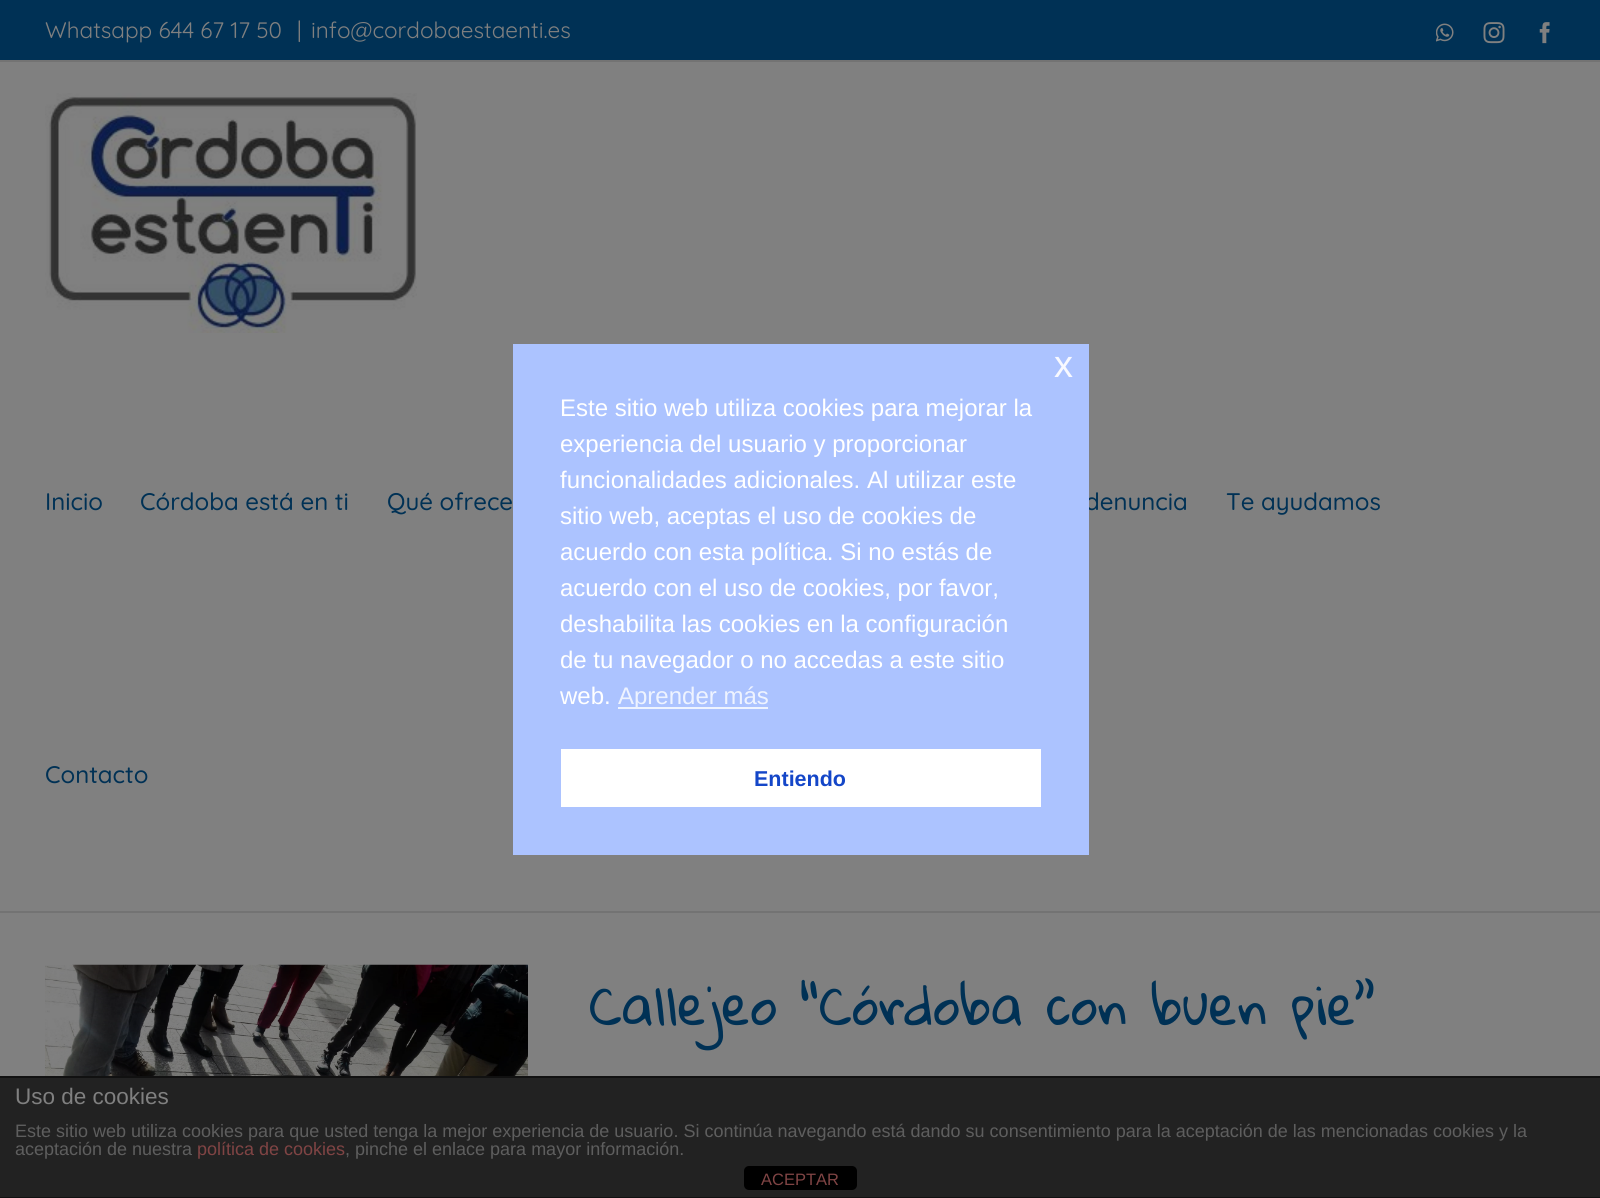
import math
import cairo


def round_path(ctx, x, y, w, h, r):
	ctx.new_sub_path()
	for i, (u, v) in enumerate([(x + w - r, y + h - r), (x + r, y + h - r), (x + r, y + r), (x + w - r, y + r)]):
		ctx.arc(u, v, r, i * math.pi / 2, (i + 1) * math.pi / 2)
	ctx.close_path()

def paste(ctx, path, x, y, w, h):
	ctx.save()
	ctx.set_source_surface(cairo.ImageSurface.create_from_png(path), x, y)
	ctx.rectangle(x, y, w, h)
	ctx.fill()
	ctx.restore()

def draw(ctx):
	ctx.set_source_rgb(0.502, 0.502, 0.502)
	ctx.paint()
	ctx.set_source_rgb(0, 0.192, 0.333)
	ctx.rectangle(0, 0, 1600, 60)
	ctx.fill()
	ctx.set_source_rgb(0.451, 0.451, 0.451)
	ctx.rectangle(0, 60, 1600, 2)
	ctx.fill()
	ctx.select_font_face('Quicksand')
	ctx.set_font_size(22.5)
	ctx.set_source_rgb(0.502, 0.502, 0.502)
	for x, y, s in [
		(45, 38, 'Whatsapp 644 67 17 50'),
		(297, 38, '|'),
		(311, 38, 'info@cordobaestaenti.es'),
	]:
		ctx.move_to(x, y)
		ctx.show_text(s)
	paste(ctx, 'media/1.png', 1436, 23, 18, 19)
	paste(ctx, 'media/2.png', 1483, 22, 22, 22)
	paste(ctx, 'media/3.png', 1539, 22, 11, 22)
	ctx.set_source_rgb(0.451, 0.451, 0.451)
	ctx.rectangle(0, 911, 1600, 2)
	ctx.fill()
	paste(ctx, 'media/4.png', 45, 93, 372, 240)
	ctx.select_font_face('Quicksand Medium')
	ctx.set_font_size(24)
	ctx.set_source_rgb(0, 0.192, 0.333)
	for x, y, s in [
		(45, 510, 'Inicio'),
		(140, 510, 'Córdoba está en ti'),
		(387, 510, 'Qué ofrece'),
		(1085, 510, 'denuncia'),
		(1226, 510, 'Te ayudamos'),
		(45, 783, 'Contacto'),
	]:
		ctx.move_to(x, y)
		ctx.show_text(s)
	paste(ctx, 'media/5.png', 45, 964, 483, 112)
	ctx.select_font_face('Gloria Hallelujah')
	ctx.set_font_size(52.5)
	ctx.move_to(589, 1025)
	ctx.show_text('Callejeo “Córdoba con buen pie”')
	ctx.set_source_rgb(0.675, 0.765, 1)
	ctx.rectangle(513, 344, 576, 511)
	ctx.fill()
	ctx.select_font_face('Liberation Sans')
	ctx.set_font_size(38)
	ctx.set_source_rgb(0.969, 0.976, 1)
	ctx.move_to(1054, 377)
	ctx.show_text('x')
	ctx.set_font_size(24)
	ctx.set_source_rgb(1, 1, 1)
	for x, y, s in [
		(560, 416, 'Este sitio web utiliza cookies para mejorar la'),
		(560, 452, 'experiencia del usuario y proporcionar'),
		(560, 488, 'funcionalidades adicionales. Al utilizar este'),
		(560, 524, 'sitio web, aceptas el uso de cookies de'),
		(560, 560, 'acuerdo con esta política. Si no estás de'),
		(560, 596, 'acuerdo con el uso de cookies, por favor,'),
		(560, 632, 'deshabilita las cookies en la configuración'),
		(560, 668, 'de tu navegador o no accedas a este sitio'),
		(560, 704, 'web.'),
	]:
		ctx.move_to(x, y)
		ctx.show_text(s)
	ctx.set_source_rgb(0.933, 0.953, 1)
	ctx.rectangle(618, 707, 150, 2)
	ctx.fill()
	ctx.move_to(618, 704)
	ctx.show_text('Aprender más')
	ctx.set_source_rgb(1, 1, 1)
	ctx.rectangle(561, 749, 480, 58)
	ctx.fill()
	ctx.select_font_face('Liberation Sans', cairo.FONT_SLANT_NORMAL, cairo.FONT_WEIGHT_BOLD)
	ctx.set_font_size(21.5)
	ctx.set_source_rgb(0.082, 0.275, 0.784)
	ctx.move_to(754, 786)
	ctx.show_text('Entiendo')
	ctx.set_source_rgb(0.133, 0.133, 0.133)
	ctx.rectangle(0, 1078, 1600, 119)
	ctx.fill()
	ctx.set_source_rgb(0.067, 0.067, 0.067)
	ctx.rectangle(0, 1076, 1600, 2)
	ctx.rectangle(0, 1197, 1600, 1)
	ctx.fill()
	ctx.select_font_face('Liberation Sans')
	ctx.set_font_size(22.5)
	ctx.set_source_rgb(0.502, 0.502, 0.502)
	ctx.move_to(15, 1104)
	ctx.show_text('Uso de cookies')
	ctx.set_font_size(18)
	ctx.set_source_rgb(0.369, 0.369, 0.369)
	ctx.move_to(15, 1137)
	ctx.show_text('Este sitio web utiliza cookies para que usted tenga la mejor experiencia de usuario. Si continúa navegando está dando su consentimiento para la aceptación de las mencionadas cookies y la')
	ctx.move_to(15, 1155)
	ctx.show_text('aceptación de nuestra')
	ctx.set_source_rgb(0.502, 0.267, 0.267)
	ctx.move_to(197, 1155)
	ctx.show_text('política de cookies')
	ctx.set_source_rgb(0.369, 0.369, 0.369)
	ctx.move_to(345, 1155)
	ctx.show_text(', pinche el enlace para mayor información.')
	ctx.set_source_rgb(0, 0, 0)
	round_path(ctx, 744, 1166, 113, 24, 5)
	ctx.fill()
	ctx.set_font_size(16.5)
	ctx.set_source_rgb(0.502, 0.267, 0.267)
	ctx.move_to(761, 1185)
	ctx.show_text('ACEPTAR')


surface = cairo.ImageSurface(cairo.FORMAT_RGB24, 1600, 1198)
ctx = cairo.Context(surface)
options = cairo.FontOptions()
options.set_hint_metrics(cairo.HINT_METRICS_OFF)
options.set_hint_style(cairo.HINT_STYLE_NONE)
ctx.set_font_options(options)
ctx.set_miter_limit(4)
draw(ctx)
surface.write_to_png('image.png')
